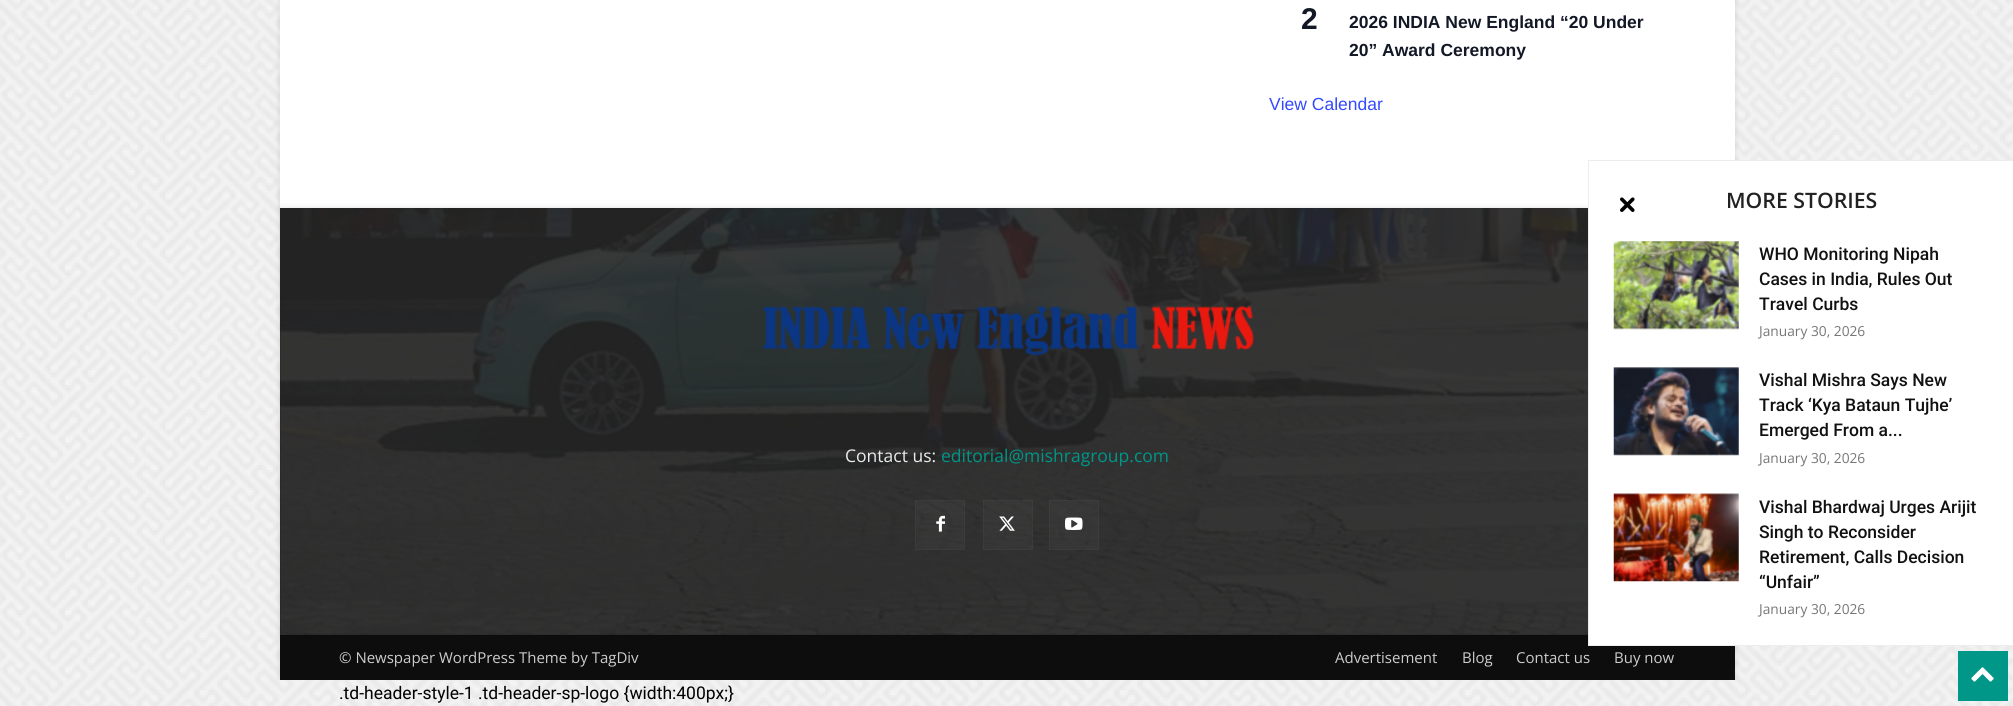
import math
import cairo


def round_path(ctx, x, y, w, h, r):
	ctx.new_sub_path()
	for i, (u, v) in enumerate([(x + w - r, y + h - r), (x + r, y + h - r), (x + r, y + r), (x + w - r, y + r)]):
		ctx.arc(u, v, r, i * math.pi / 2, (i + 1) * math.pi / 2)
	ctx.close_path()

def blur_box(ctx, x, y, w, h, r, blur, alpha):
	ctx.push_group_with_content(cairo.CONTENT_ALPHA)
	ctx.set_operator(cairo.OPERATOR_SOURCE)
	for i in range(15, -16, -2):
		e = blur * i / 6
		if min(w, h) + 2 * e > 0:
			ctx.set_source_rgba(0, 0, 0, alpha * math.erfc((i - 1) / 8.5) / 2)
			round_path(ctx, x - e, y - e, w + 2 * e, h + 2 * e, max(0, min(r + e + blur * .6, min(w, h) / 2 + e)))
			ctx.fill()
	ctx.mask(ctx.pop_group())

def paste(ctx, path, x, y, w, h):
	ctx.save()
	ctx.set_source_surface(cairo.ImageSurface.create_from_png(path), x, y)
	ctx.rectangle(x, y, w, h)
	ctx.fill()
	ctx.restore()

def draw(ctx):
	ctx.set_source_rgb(1, 1, 1)
	ctx.paint()
	paste(ctx, 'media/1.png', 0, 0, 2013, 706)
	ctx.set_source_rgb(0, 0, 0)
	blur_box(ctx, 280, -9, 1455, 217, 0, 3, 0.12)
	ctx.set_source_rgb(1, 1, 1)
	ctx.rectangle(280, 0, 1455, 208)
	ctx.fill()
	ctx.select_font_face('Liberation Sans', cairo.FONT_SLANT_NORMAL, cairo.FONT_WEIGHT_BOLD)
	ctx.set_font_size(30)
	ctx.set_source_rgb(0.078, 0.094, 0.153)
	ctx.move_to(1301, 29)
	ctx.show_text('2')
	ctx.set_font_size(17.5)
	ctx.move_to(1349, 28)
	ctx.show_text('2026 INDIA New England “20 Under')
	ctx.move_to(1349, 56)
	ctx.show_text('20” Award Ceremony')
	ctx.select_font_face('Liberation Sans')
	ctx.set_source_rgb(0.2, 0.29, 1)
	ctx.move_to(1269, 110)
	ctx.show_text('View Calendar')
	ctx.save()
	ctx.rectangle(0, 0, 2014, 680)
	ctx.clip()
	ctx.set_source_rgb(0, 0, 0)
	blur_box(ctx, 280, 635, 1455, 45, 0, 3, 0.12)
	ctx.restore()
	ctx.set_source_rgb(0.051, 0.051, 0.051)
	ctx.rectangle(280, 635, 1455, 45)
	ctx.fill()
	ctx.set_source_rgb(0, 0, 0)
	blur_box(ctx, 280, 208, 1455, 427, 0, 3, 0.12)
	ctx.set_source_rgb(0.133, 0.133, 0.133)
	ctx.rectangle(280, 208, 1308, 427)
	ctx.fill()
	paste(ctx, 'media/2.png', 279, 208, 1309, 427)
	paste(ctx, 'media/3.png', 762, 306, 492, 50)
	ctx.select_font_face('Open Sans')
	ctx.set_source_rgb(0.918, 0.918, 0.918)
	ctx.move_to(845, 462)
	ctx.show_text('Contact us:')
	ctx.set_source_rgb(0, 0.588, 0.533)
	ctx.move_to(941, 462)
	ctx.show_text('editorial@mishragroup.com')
	ctx.set_source_rgba(1, 1, 1, 0.03)
	ctx.rectangle(915, 500, 50, 50)
	ctx.fill()
	paste(ctx, 'media/4.png', 936, 515, 9, 17)
	ctx.rectangle(915.5, 500.5, 49, 49)
	ctx.set_line_width(1)
	ctx.stroke()
	ctx.rectangle(983, 500, 50, 50)
	ctx.fill()
	paste(ctx, 'media/5.png', 999, 516, 16, 15)
	ctx.rectangle(983.5, 500.5, 49, 49)
	ctx.stroke()
	ctx.rectangle(1049, 500, 50, 50)
	ctx.fill()
	paste(ctx, 'media/6.png', 1065, 517, 18, 13)
	ctx.rectangle(1049.5, 500.5, 49, 49)
	ctx.stroke()
	ctx.set_font_size(15)
	ctx.set_source_rgb(0.8, 0.8, 0.8)
	for x, y, s in [
		(339, 663, '© Newspaper WordPress Theme by TagDiv'),
		(1335, 663, 'Advertisement'),
		(1462, 663, 'Blog'),
		(1516, 663, 'Contact us'),
		(1614, 663, 'Buy now'),
	]:
		ctx.move_to(x, y)
		ctx.show_text(s)
	ctx.set_source_rgb(1, 1, 1)
	ctx.rectangle(1589, 161, 424, 484)
	ctx.fill()
	ctx.set_source_rgb(0.929, 0.929, 0.929)
	ctx.rectangle(1588, 160, 425, 1)
	ctx.rectangle(1588, 645, 425, 1)
	ctx.rectangle(1588, 160, 1, 486)
	ctx.fill()
	paste(ctx, 'media/7.png', 1620, 197, 15, 15)
	ctx.select_font_face('Open Sans SemiBold')
	ctx.set_font_size(21.25)
	ctx.set_source_rgb(0.133, 0.133, 0.133)
	ctx.move_to(1726, 208)
	ctx.show_text('MORE STORIES')
	paste(ctx, 'media/8.png', 1613, 241, 126, 89)
	ctx.select_font_face('Roboto Medium')
	ctx.set_font_size(17.5)
	ctx.set_source_rgb(0.067, 0.067, 0.067)
	for x, y, s in [
		(1759, 260, 'WHO Monitoring Nipah'),
		(1759, 285, 'Cases in India, Rules Out'),
		(1759, 310, 'Travel Curbs'),
	]:
		ctx.move_to(x, y)
		ctx.show_text(s)
	ctx.select_font_face('Open Sans')
	ctx.set_font_size(13.75)
	ctx.set_source_rgb(0.463, 0.463, 0.463)
	ctx.move_to(1759, 336)
	ctx.show_text('January 30, 2026')
	paste(ctx, 'media/9.png', 1613, 367, 126, 89)
	ctx.select_font_face('Roboto Medium')
	ctx.set_font_size(17.5)
	ctx.set_source_rgb(0.067, 0.067, 0.067)
	for x, y, s in [
		(1759, 386, 'Vishal Mishra Says New'),
		(1759, 411, 'Track ‘Kya Bataun Tujhe’'),
		(1759, 436, 'Emerged From a...'),
	]:
		ctx.move_to(x, y)
		ctx.show_text(s)
	ctx.select_font_face('Open Sans')
	ctx.set_font_size(13.75)
	ctx.set_source_rgb(0.463, 0.463, 0.463)
	ctx.move_to(1759, 463)
	ctx.show_text('January 30, 2026')
	paste(ctx, 'media/10.png', 1613, 493, 126, 89)
	ctx.select_font_face('Roboto Medium')
	ctx.set_font_size(17.5)
	ctx.set_source_rgb(0.067, 0.067, 0.067)
	for x, y, s in [
		(1759, 513, 'Vishal Bhardwaj Urges Arijit'),
		(1759, 538, 'Singh to Reconsider'),
		(1759, 563, 'Retirement, Calls Decision'),
		(1759, 588, '“Unfair”'),
	]:
		ctx.move_to(x, y)
		ctx.show_text(s)
	ctx.select_font_face('Open Sans')
	ctx.set_font_size(13.75)
	ctx.set_source_rgb(0.463, 0.463, 0.463)
	ctx.move_to(1759, 614)
	ctx.show_text('January 30, 2026')
	ctx.select_font_face('Roboto')
	ctx.set_font_size(17.5)
	ctx.set_source_rgb(0, 0, 0)
	ctx.move_to(339, 699)
	ctx.show_text('.td-header-style-1 .td-header-sp-logo {width:400px;}')
	ctx.set_source_rgb(0, 0.588, 0.533)
	ctx.rectangle(1958, 651, 50, 50)
	ctx.fill()
	paste(ctx, 'media/11.png', 1971, 667, 23, 15)


surface = cairo.ImageSurface(cairo.FORMAT_RGB24, 2013, 706)
ctx = cairo.Context(surface)
options = cairo.FontOptions()
options.set_hint_metrics(cairo.HINT_METRICS_OFF)
options.set_hint_style(cairo.HINT_STYLE_NONE)
ctx.set_font_options(options)
ctx.set_miter_limit(4)
draw(ctx)
surface.write_to_png('image.png')
